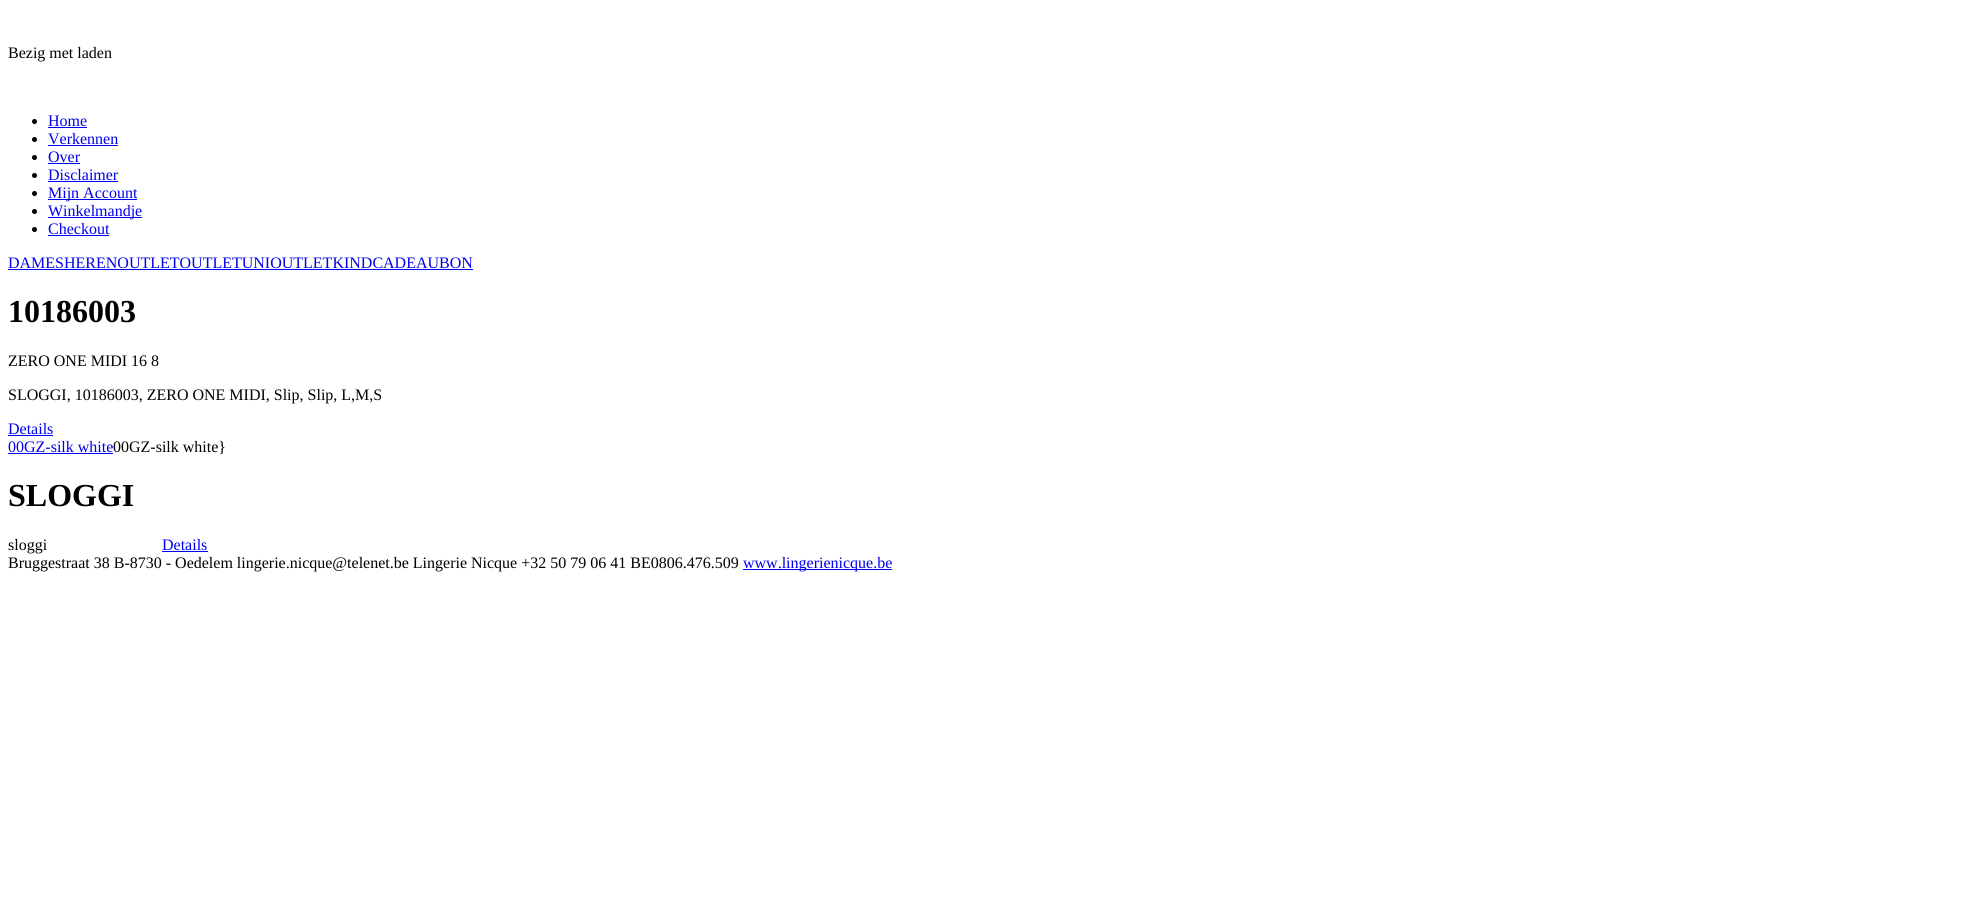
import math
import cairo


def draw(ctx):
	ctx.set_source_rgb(1, 1, 1)
	ctx.paint()
	ctx.select_font_face('Liberation Serif')
	ctx.set_font_size(16)
	ctx.set_source_rgb(0, 0, 0)
	ctx.move_to(8, 58)
	ctx.show_text('Bezig met laden')
	ctx.new_path()
	ctx.arc(34.5, 121.5, 2.5, 0, 2 * math.pi)
	ctx.fill()
	ctx.set_source_rgb(0, 0, 0.933)
	ctx.move_to(48, 126)
	ctx.show_text('Home')
	ctx.rectangle(48, 127, 39, 1)
	ctx.fill()
	ctx.set_source_rgb(0, 0, 0)
	ctx.arc(34.5, 139.5, 2.5, 0, 2 * math.pi)
	ctx.fill()
	ctx.set_source_rgb(0, 0, 0.933)
	ctx.move_to(48, 144)
	ctx.show_text('Verkennen')
	ctx.rectangle(48, 145, 70, 1)
	ctx.fill()
	ctx.set_source_rgb(0, 0, 0)
	ctx.arc(34.5, 157.5, 2.5, 0, 2 * math.pi)
	ctx.fill()
	ctx.set_source_rgb(0, 0, 0.933)
	ctx.move_to(48, 162)
	ctx.show_text('Over')
	ctx.rectangle(48, 163, 32, 1)
	ctx.fill()
	ctx.set_source_rgb(0, 0, 0)
	ctx.arc(34.5, 175.5, 2.5, 0, 2 * math.pi)
	ctx.fill()
	ctx.set_source_rgb(0, 0, 0.933)
	ctx.move_to(48, 180)
	ctx.show_text('Disclaimer')
	ctx.rectangle(48, 181, 70, 1)
	ctx.fill()
	ctx.set_source_rgb(0, 0, 0)
	ctx.arc(34.5, 193.5, 2.5, 0, 2 * math.pi)
	ctx.fill()
	ctx.set_source_rgb(0, 0, 0.933)
	ctx.rectangle(48, 199, 89, 1)
	ctx.fill()
	ctx.move_to(48, 198)
	ctx.show_text('Mijn Account')
	ctx.set_source_rgb(0, 0, 0)
	ctx.new_path()
	ctx.arc(34.5, 211.5, 2.5, 0, 2 * math.pi)
	ctx.fill()
	ctx.set_source_rgb(0, 0, 0.933)
	ctx.rectangle(48, 217, 94, 1)
	ctx.fill()
	ctx.move_to(48, 216)
	ctx.show_text('Winkelmandje')
	ctx.set_source_rgb(0, 0, 0)
	ctx.new_path()
	ctx.arc(34.5, 229.5, 2.5, 0, 2 * math.pi)
	ctx.fill()
	ctx.set_source_rgb(0, 0, 0.933)
	ctx.move_to(48, 234)
	ctx.show_text('Checkout')
	ctx.rectangle(48, 235, 61, 1)
	ctx.fill()
	ctx.move_to(8, 268)
	ctx.show_text('DAMESHERENOUTLETOUTLETUNIOUTLETKINDCADEAUBON')
	ctx.rectangle(8, 269, 465, 1)
	ctx.fill()
	ctx.select_font_face('Liberation Serif', cairo.FONT_SLANT_NORMAL, cairo.FONT_WEIGHT_BOLD)
	ctx.set_font_size(32)
	ctx.set_source_rgb(0, 0, 0)
	ctx.move_to(8, 322)
	ctx.show_text('10186003')
	ctx.select_font_face('Liberation Serif')
	ctx.set_font_size(16)
	ctx.move_to(8, 366)
	ctx.show_text('ZERO ONE MIDI 16 8')
	ctx.move_to(8, 400)
	ctx.show_text('SLOGGI, 10186003, ZERO ONE MIDI, Slip, Slip, L,M,S')
	ctx.set_source_rgb(0, 0, 0.933)
	ctx.move_to(8, 434)
	ctx.show_text('Details')
	ctx.rectangle(8, 435, 45, 1)
	ctx.fill()
	ctx.move_to(8, 452)
	ctx.show_text('00GZ-silk white')
	ctx.rectangle(8, 453, 105, 1)
	ctx.fill()
	ctx.set_source_rgb(0, 0, 0)
	ctx.move_to(113, 452)
	ctx.show_text('00GZ-silk white}')
	ctx.select_font_face('Liberation Serif', cairo.FONT_SLANT_NORMAL, cairo.FONT_WEIGHT_BOLD)
	ctx.set_font_size(32)
	ctx.move_to(8, 506)
	ctx.show_text('SLOGGI')
	ctx.select_font_face('Liberation Serif')
	ctx.set_font_size(16)
	ctx.move_to(8, 550)
	ctx.show_text('sloggi')
	ctx.set_source_rgb(0, 0, 0.933)
	ctx.move_to(162, 550)
	ctx.show_text('Details')
	ctx.rectangle(162, 551, 46, 1)
	ctx.fill()
	ctx.set_source_rgb(0, 0, 0)
	ctx.move_to(8, 568)
	ctx.show_text('Bruggestraat 38 B-8730 - Oedelem lingerie.nicque@telenet.be Lingerie Nicque +32 50 79 06 41 BE0806.476.509')
	ctx.set_source_rgb(0, 0, 0.933)
	ctx.rectangle(743, 569, 149, 1)
	ctx.fill()
	ctx.move_to(743, 568)
	ctx.show_text('www.lingerienicque.be')


surface = cairo.ImageSurface(cairo.FORMAT_RGB24, 1971, 902)
ctx = cairo.Context(surface)
options = cairo.FontOptions()
options.set_hint_metrics(cairo.HINT_METRICS_OFF)
options.set_hint_style(cairo.HINT_STYLE_NONE)
ctx.set_font_options(options)
ctx.set_miter_limit(4)
draw(ctx)
surface.write_to_png('image.png')
